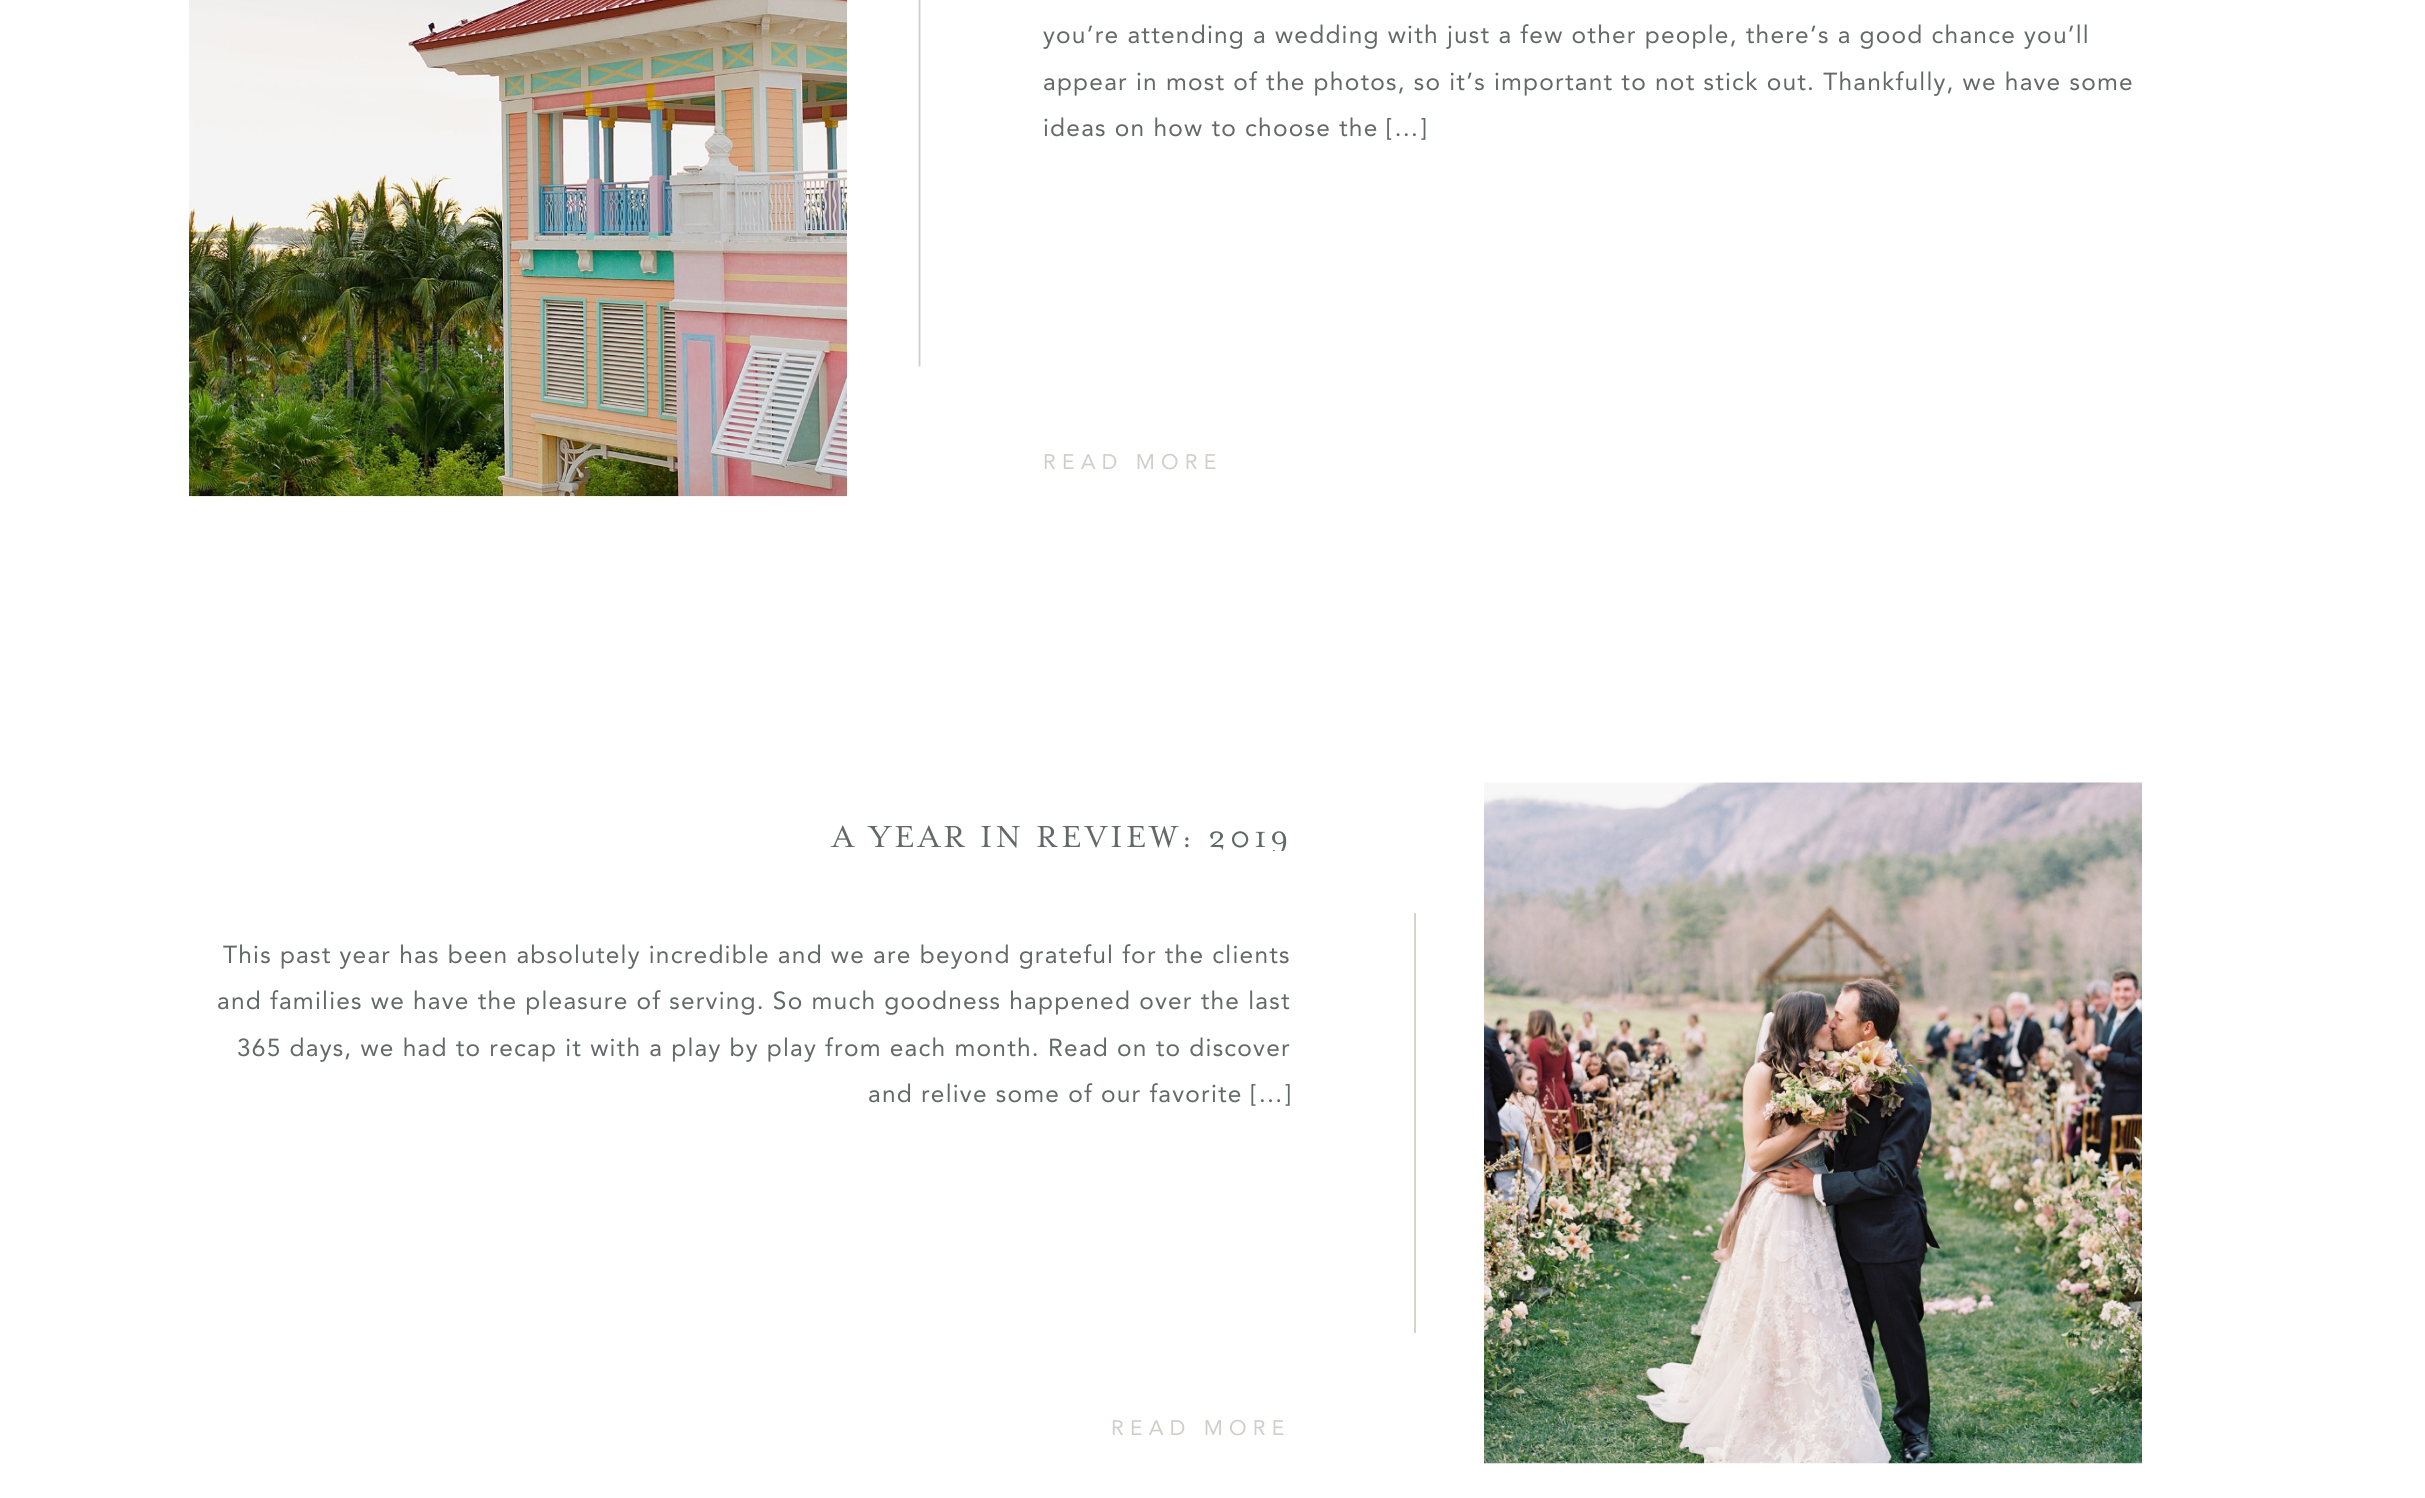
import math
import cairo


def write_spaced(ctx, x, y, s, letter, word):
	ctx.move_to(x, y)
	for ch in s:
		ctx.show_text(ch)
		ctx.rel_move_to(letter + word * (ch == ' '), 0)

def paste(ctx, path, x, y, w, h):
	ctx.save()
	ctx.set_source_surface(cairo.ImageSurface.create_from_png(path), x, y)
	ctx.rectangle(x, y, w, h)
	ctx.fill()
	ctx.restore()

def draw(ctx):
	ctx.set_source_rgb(1, 1, 1)
	ctx.paint()
	paste(ctx, 'media/1.png', 189, 0, 658, 498)
	ctx.new_path()
	ctx.move_to(919.5, -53.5)
	ctx.line_to(919.5, 366.5)
	ctx.set_source_rgb(0.82, 0.804, 0.784)
	ctx.set_line_width(1.8)
	ctx.stroke()
	ctx.select_font_face('Avenir')
	ctx.set_font_size(24.5)
	ctx.set_source_rgb(0.388, 0.412, 0.408)
	for x, y, s in [
		(1043, 43, 'you’re attending a wedding with just a few other people, there’s a good chance you’ll'),
		(1043, 90, 'appear in most of the photos, so it’s important to not stick out. Thankfully, we have some'),
		(1043, 136, 'ideas on how to choose the […]'),
	]:
		write_spaced(ctx, x, y, s, 1.22, 0)
	ctx.set_font_size(21)
	ctx.set_source_rgb(0.82, 0.804, 0.784)
	write_spaced(ctx, 1043, 469, 'READ MORE', 6.25, 0)
	ctx.save()
	ctx.rectangle(196, 805, 1096, 46)
	ctx.clip()
	ctx.select_font_face('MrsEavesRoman')
	ctx.set_font_size(35)
	ctx.set_source_rgb(0.388, 0.412, 0.408)
	write_spaced(ctx, 832, 847, 'A YEAR IN REVIEW: 2019', 3.5, 0)
	ctx.restore()
	paste(ctx, 'media/2.png', 1484, 782, 658, 682)
	ctx.set_font_size(24.5)
	ctx.set_source_rgb(0.388, 0.412, 0.408)
	for x, y, s in [
		(223, 963, 'This past year has been absolutely incredible and we are beyond grateful for the clients'),
		(217, 1009, 'and families we have the pleasure of serving. So much goodness happened over the last'),
		(237, 1056, '365 days, we had to recap it with a play by play from each month. Read on to discover'),
		(868, 1102, 'and relive some of our favorite […]'),
	]:
		write_spaced(ctx, x, y, s, 1.22, 0)
	ctx.set_source_rgb(0.839, 0.824, 0.808)
	ctx.rectangle(1414, 913, 2, 420)
	ctx.fill()
	ctx.set_font_size(21)
	ctx.set_source_rgb(0.82, 0.804, 0.784)
	write_spaced(ctx, 1111, 1435, 'READ MORE', 6.25, 0)


surface = cairo.ImageSurface(cairo.FORMAT_RGB24, 2425, 1498)
ctx = cairo.Context(surface)
options = cairo.FontOptions()
options.set_hint_metrics(cairo.HINT_METRICS_OFF)
options.set_hint_style(cairo.HINT_STYLE_NONE)
ctx.set_font_options(options)
ctx.set_miter_limit(4)
draw(ctx)
surface.write_to_png('image.png')
